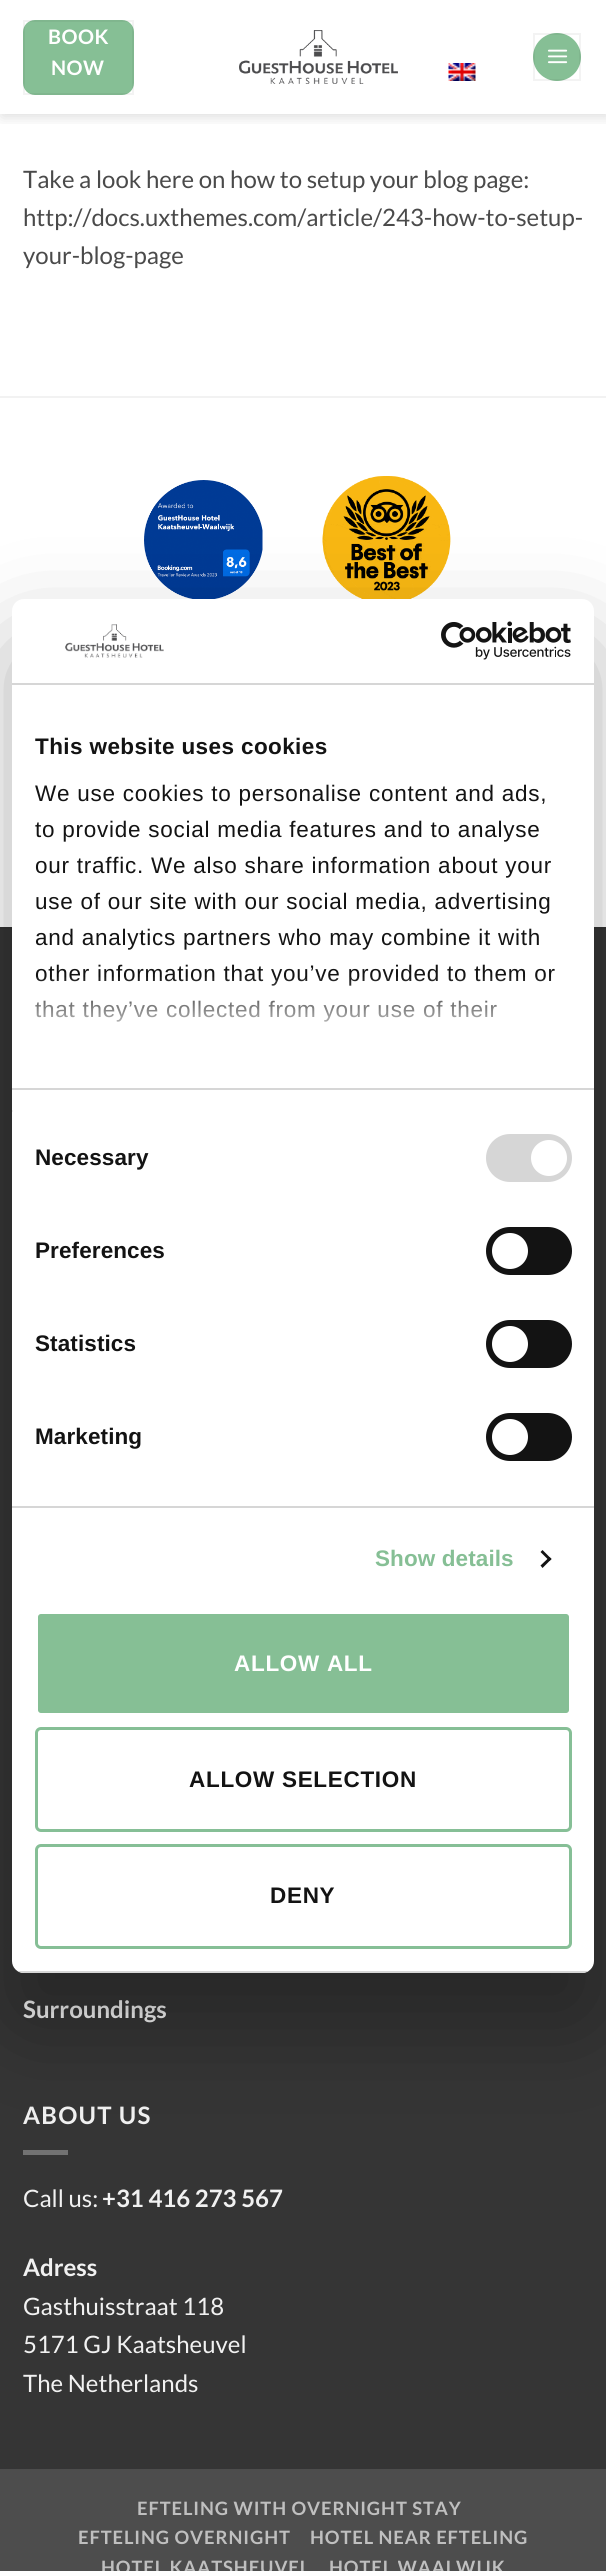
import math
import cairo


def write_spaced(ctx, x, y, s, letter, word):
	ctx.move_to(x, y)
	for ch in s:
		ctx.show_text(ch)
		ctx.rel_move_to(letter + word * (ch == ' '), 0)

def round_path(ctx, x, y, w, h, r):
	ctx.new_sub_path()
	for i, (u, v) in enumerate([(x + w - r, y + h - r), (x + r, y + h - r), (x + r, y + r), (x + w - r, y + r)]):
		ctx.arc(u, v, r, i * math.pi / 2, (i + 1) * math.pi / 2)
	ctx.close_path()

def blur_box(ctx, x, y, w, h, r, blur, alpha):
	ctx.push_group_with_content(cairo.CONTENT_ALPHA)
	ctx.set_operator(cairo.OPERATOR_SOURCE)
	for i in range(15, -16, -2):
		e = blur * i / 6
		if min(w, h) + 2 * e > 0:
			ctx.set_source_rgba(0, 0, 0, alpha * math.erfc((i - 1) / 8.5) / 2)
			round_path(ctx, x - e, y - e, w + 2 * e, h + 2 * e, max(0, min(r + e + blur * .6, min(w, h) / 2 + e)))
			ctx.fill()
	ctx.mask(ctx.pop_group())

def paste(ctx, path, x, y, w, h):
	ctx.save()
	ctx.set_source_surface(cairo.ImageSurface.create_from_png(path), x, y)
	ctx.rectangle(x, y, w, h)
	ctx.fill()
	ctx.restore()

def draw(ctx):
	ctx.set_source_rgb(1, 1, 1)
	ctx.paint()
	ctx.save()
	ctx.rectangle(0, 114, 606, 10)
	ctx.clip()
	ctx.set_source_rgb(0, 0, 0)
	blur_box(ctx, 2, 2, 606, 114, 0, 7.5, 0.15)
	ctx.restore()
	ctx.set_source_rgb(0.525, 0.749, 0.584)
	round_path(ctx, 23, 20, 111, 75, 12)
	ctx.fill()
	ctx.rectangle(24, 21, 109, 73)
	ctx.set_source_rgba(0, 0, 0, 0.05)
	ctx.stroke()
	ctx.select_font_face('Lato', cairo.FONT_SLANT_NORMAL, cairo.FONT_WEIGHT_BOLD)
	ctx.set_font_size(20)
	ctx.set_source_rgb(1, 1, 1)
	write_spaced(ctx, 48, 44, 'BOOK', 0.5, 0)
	write_spaced(ctx, 51, 75, 'NOW', 0.5, 0)
	paste(ctx, 'media/1.png', 239, 30, 159, 54)
	paste(ctx, 'media/2.png', 448, 63, 28, 18)
	ctx.set_source_rgb(0.525, 0.749, 0.584)
	ctx.arc(557, 57, 24, 0, 2 * math.pi)
	ctx.fill()
	ctx.rectangle(534, 34, 46, 46)
	ctx.set_source_rgba(0, 0, 0, 0.05)
	ctx.stroke()
	paste(ctx, 'media/3.png', 547, 49, 21, 15)
	ctx.select_font_face('Lato')
	ctx.set_font_size(24)
	ctx.set_source_rgb(0.29, 0.29, 0.29)
	for x, y, s in [
		(23, 188, 'Take a look here on how to setup your blog page:'),
		(23, 226, 'http://docs.uxthemes.com/article/243-how-to-setup-'),
		(23, 264, 'your-blog-page'),
	]:
		ctx.move_to(x, y)
		ctx.show_text(s)
	ctx.set_source_rgb(0.949, 0.949, 0.949)
	ctx.rectangle(0, 396, 606, 2)
	ctx.fill()
	paste(ctx, 'media/4.png', 144, 480, 119, 119)
	paste(ctx, 'media/5.png', 322, 476, 129, 123)
	ctx.set_source_rgb(0.208, 0.208, 0.208)
	ctx.rectangle(0, 929, 606, 1540)
	ctx.fill()
	ctx.set_source_rgb(0.196, 0.196, 0.196)
	ctx.rectangle(0, 927, 606, 2)
	ctx.fill()
	ctx.select_font_face('Lato', cairo.FONT_SLANT_NORMAL, cairo.FONT_WEIGHT_BOLD)
	ctx.set_source_rgb(0.945, 0.945, 0.945)
	ctx.move_to(23, 2018)
	ctx.show_text('Surroundings')
	write_spaced(ctx, 23, 2124, 'ABOUT US', 1.25, 0)
	ctx.set_source_rgb(0.447, 0.447, 0.447)
	ctx.rectangle(23, 2150, 45, 5)
	ctx.fill()
	ctx.select_font_face('Lato')
	ctx.set_source_rgb(0.945, 0.945, 0.945)
	ctx.move_to(23, 2207)
	ctx.show_text('Call us:')
	ctx.select_font_face('Lato', cairo.FONT_SLANT_NORMAL, cairo.FONT_WEIGHT_BOLD)
	ctx.move_to(102, 2207)
	ctx.show_text('+31 416 273 567')
	ctx.move_to(23, 2276)
	ctx.show_text('Adress')
	ctx.select_font_face('Lato')
	for x, y, s in [
		(23, 2315, 'Gasthuisstraat 118'),
		(23, 2353, '5171 GJ Kaatsheuvel'),
		(23, 2392, 'The Netherlands'),
	]:
		ctx.move_to(x, y)
		ctx.show_text(s)
	ctx.set_source_rgb(0.302, 0.302, 0.302)
	ctx.rectangle(0, 2469, 606, 102)
	ctx.fill()
	ctx.select_font_face('Lato', cairo.FONT_SLANT_NORMAL, cairo.FONT_WEIGHT_BOLD)
	ctx.set_font_size(18.4)
	ctx.set_source_rgb(0.749, 0.749, 0.749)
	for x, y, s in [
		(137, 2515, 'EFTELING WITH OVERNIGHT STAY'),
		(78, 2544, 'EFTELING OVERNIGHT'),
		(310, 2544, 'HOTEL NEAR EFTELING'),
		(101, 2574, 'HOTEL KAATSHEUVEL'),
		(329, 2574, 'HOTEL WAALWIJK'),
	]:
		write_spaced(ctx, x, y, s, 0.9, 0)
	ctx.set_source_rgb(0, 0, 0)
	blur_box(ctx, 12, 647, 582, 1374, 12, 51, 0.3)
	ctx.set_source_rgb(1, 1, 1)
	round_path(ctx, 12, 599, 582, 1374, 12)
	ctx.fill()
	ctx.set_source_rgb(0.839, 0.839, 0.839)
	ctx.rectangle(12, 683, 582, 2)
	ctx.fill()
	paste(ctx, 'media/6.png', 65, 624, 99, 34)
	paste(ctx, 'media/7.png', 441, 621, 130, 39)
	ctx.rectangle(12, 1088, 582, 2)
	ctx.fill()
	ctx.select_font_face('Liberation Sans', cairo.FONT_SLANT_NORMAL, cairo.FONT_WEIGHT_BOLD)
	ctx.set_font_size(22.5)
	ctx.set_source_rgb(0.078, 0.078, 0.078)
	write_spaced(ctx, 35, 754, 'This website uses cookies', 0.4, 0)
	ctx.select_font_face('Liberation Sans')
	for x, y, s in [
		(35, 801, 'We use cookies to personalise content and ads,'),
		(35, 837, 'to provide social media features and to analyse'),
		(35, 873, 'our traffic. We also share information about your'),
		(35, 909, 'use of our site with our social media, advertising'),
		(35, 945, 'and analytics partners who may combine it with'),
		(35, 981, 'other information that you’ve provided to them or'),
		(35, 1017, 'that they’ve collected from your use of their'),
	]:
		write_spaced(ctx, x, y, s, 0.75, 0)
	gradient = cairo.LinearGradient(293, 1088, 293, 975)
	gradient.add_color_stop_rgba(0, 1, 1, 1, 1)
	gradient.add_color_stop_rgba(0.5, 1, 1, 1, 0.8)
	gradient.add_color_stop_rgba(1, 1, 1, 1, 0)
	ctx.set_source(gradient)
	ctx.rectangle(34, 977, 517, 45)
	ctx.fill()
	ctx.set_source_rgb(0.839, 0.839, 0.839)
	ctx.rectangle(12, 1506, 582, 2)
	ctx.fill()
	ctx.set_source_rgb(0.945, 0.945, 0.945)
	ctx.rectangle(12, 1110, 1, 2)
	ctx.fill()
	ctx.select_font_face('Liberation Sans', cairo.FONT_SLANT_NORMAL, cairo.FONT_WEIGHT_BOLD)
	ctx.set_source_rgb(0.078, 0.078, 0.078)
	write_spaced(ctx, 35, 1165, 'Necessary', 0.1, 0)
	ctx.set_source_rgb(0.839, 0.839, 0.839)
	round_path(ctx, 486, 1134, 86, 48, 24)
	ctx.fill()
	ctx.set_source_rgb(1, 1, 1)
	ctx.arc(549, 1158, 18, 0, 2 * math.pi)
	ctx.fill()
	ctx.set_source_rgb(0.078, 0.078, 0.078)
	write_spaced(ctx, 35, 1258, 'Preferences', 0.1, 0)
	round_path(ctx, 486, 1227, 86, 48, 24)
	ctx.fill()
	ctx.set_source_rgb(1, 1, 1)
	ctx.arc(510, 1251, 18, 0, 2 * math.pi)
	ctx.fill()
	ctx.set_source_rgb(0.078, 0.078, 0.078)
	write_spaced(ctx, 35, 1351, 'Statistics', 0.1, 0)
	round_path(ctx, 486, 1320, 86, 48, 24)
	ctx.fill()
	ctx.set_source_rgb(1, 1, 1)
	ctx.arc(510, 1344, 18, 0, 2 * math.pi)
	ctx.fill()
	ctx.set_source_rgb(0.078, 0.078, 0.078)
	write_spaced(ctx, 35, 1444, 'Marketing', 0.1, 0)
	round_path(ctx, 486, 1413, 86, 48, 24)
	ctx.fill()
	ctx.set_source_rgb(1, 1, 1)
	ctx.arc(510, 1437, 18, 0, 2 * math.pi)
	ctx.fill()
	ctx.set_source_rgb(0.525, 0.749, 0.584)
	write_spaced(ctx, 375, 1566, 'Show details', 0.1, 0)
	ctx.set_source_rgb(0.078, 0.078, 0.078)
	ctx.new_path()
	ctx.move_to(542.5, 1550)
	ctx.line_to(551.5, 1559)
	ctx.line_to(549.5, 1561)
	ctx.line_to(540.5, 1552)
	ctx.close_path()
	ctx.fill()
	ctx.new_path()
	ctx.move_to(549.5, 1557)
	ctx.line_to(551.5, 1559)
	ctx.line_to(542.5, 1568)
	ctx.line_to(540.5, 1565.5)
	ctx.close_path()
	ctx.fill()
	ctx.save()
	round_path(ctx, 12, 599, 582, 1374, 12)
	ctx.clip()
	ctx.set_source_rgb(0.839, 0.839, 0.839)
	ctx.rectangle(12, 1971, 582, 2)
	ctx.fill()
	ctx.restore()
	ctx.set_source_rgb(0.525, 0.749, 0.584)
	round_path(ctx, 36.5, 1612.5, 534, 102, 4.5)
	ctx.fill_preserve()
	ctx.set_source_rgb(1, 1, 1)
	ctx.set_line_width(3)
	ctx.stroke()
	write_spaced(ctx, 234, 1671, 'ALLOW ALL', 0.7, 0)
	round_path(ctx, 36.5, 1728.5, 534, 102, 4.5)
	ctx.set_source_rgb(0.525, 0.749, 0.588)
	ctx.stroke()
	ctx.set_source_rgb(0.078, 0.078, 0.078)
	write_spaced(ctx, 189, 1787, 'ALLOW SELECTION', 0.7, 0)
	round_path(ctx, 36.5, 1845.5, 534, 102, 4.5)
	ctx.set_source_rgb(0.525, 0.749, 0.588)
	ctx.stroke()
	ctx.set_source_rgb(0.078, 0.078, 0.078)
	write_spaced(ctx, 270, 1903, 'DENY', 0.7, 0)


surface = cairo.ImageSurface(cairo.FORMAT_RGB24, 606, 2571)
ctx = cairo.Context(surface)
options = cairo.FontOptions()
options.set_hint_metrics(cairo.HINT_METRICS_OFF)
options.set_hint_style(cairo.HINT_STYLE_NONE)
ctx.set_font_options(options)
ctx.set_miter_limit(4)
draw(ctx)
surface.write_to_png('image.png')
